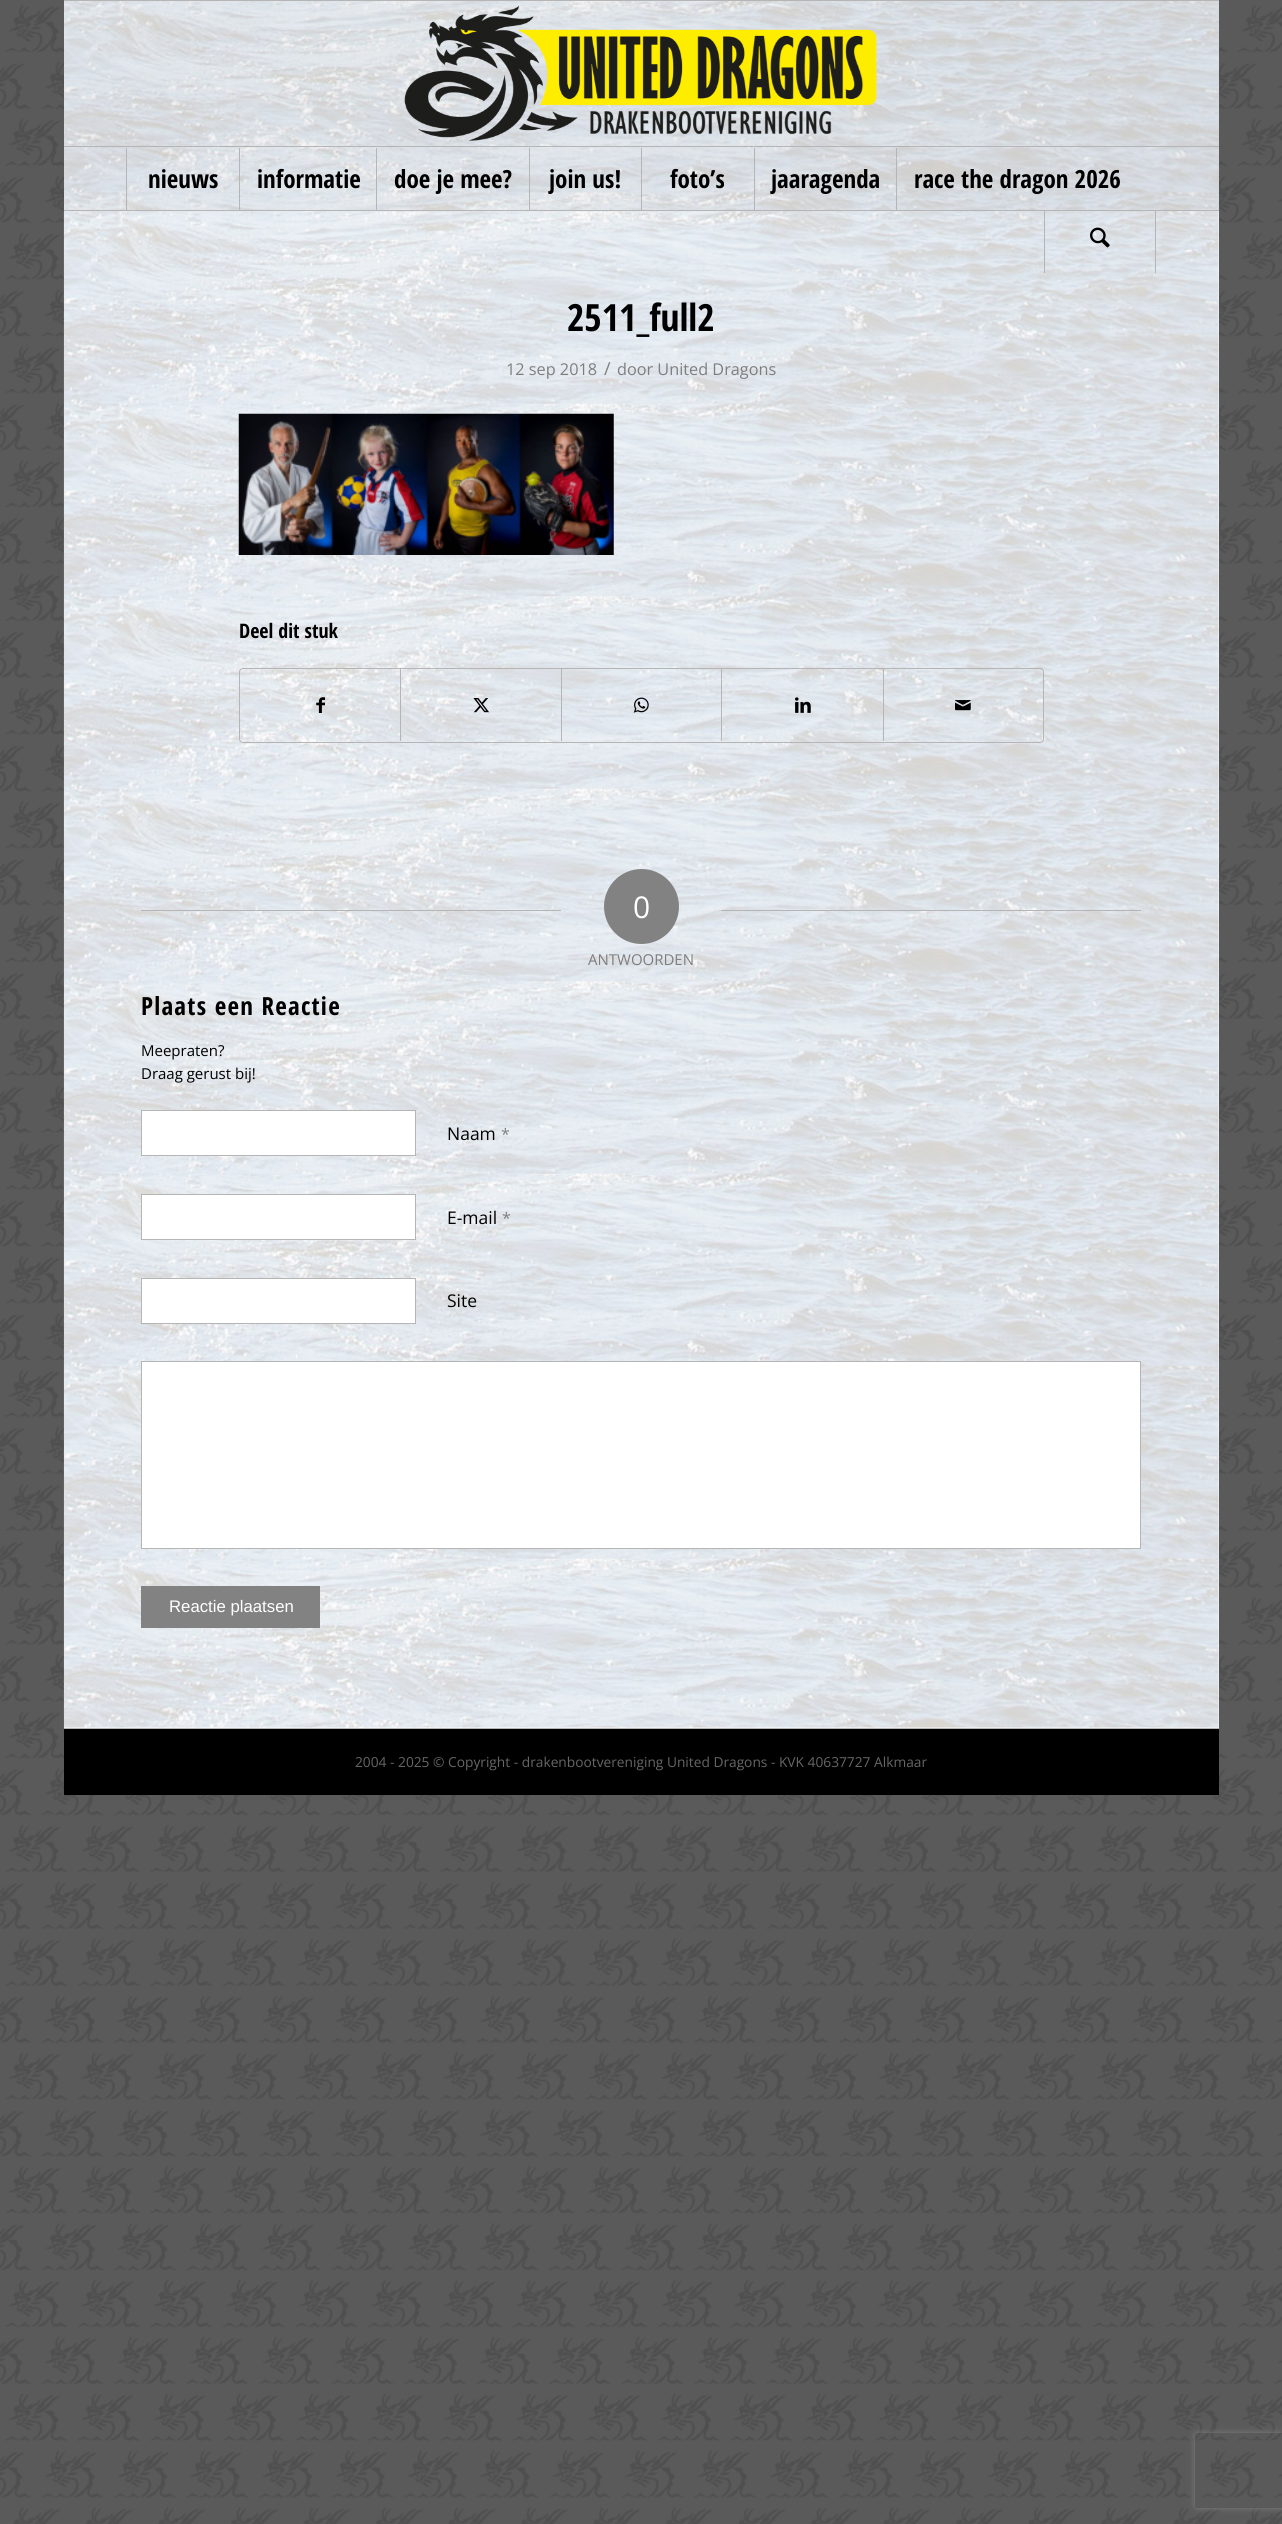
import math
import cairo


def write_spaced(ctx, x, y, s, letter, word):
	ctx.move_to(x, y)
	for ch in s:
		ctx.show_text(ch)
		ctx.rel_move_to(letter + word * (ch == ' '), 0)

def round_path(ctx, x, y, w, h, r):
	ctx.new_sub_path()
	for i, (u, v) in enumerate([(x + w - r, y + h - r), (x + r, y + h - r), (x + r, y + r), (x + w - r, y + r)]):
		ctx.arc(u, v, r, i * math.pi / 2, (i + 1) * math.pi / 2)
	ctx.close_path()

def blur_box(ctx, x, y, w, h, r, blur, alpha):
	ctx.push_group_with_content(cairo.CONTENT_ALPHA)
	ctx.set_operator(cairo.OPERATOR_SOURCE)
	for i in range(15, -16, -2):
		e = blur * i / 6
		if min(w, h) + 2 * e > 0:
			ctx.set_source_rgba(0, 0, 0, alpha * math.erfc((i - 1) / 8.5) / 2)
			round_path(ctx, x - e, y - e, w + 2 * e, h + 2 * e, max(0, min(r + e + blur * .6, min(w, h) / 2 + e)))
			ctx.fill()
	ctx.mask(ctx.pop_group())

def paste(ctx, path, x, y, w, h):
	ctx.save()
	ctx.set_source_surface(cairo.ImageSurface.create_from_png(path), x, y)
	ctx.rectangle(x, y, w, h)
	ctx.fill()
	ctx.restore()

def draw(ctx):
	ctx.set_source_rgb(1, 1, 1)
	ctx.paint()
	paste(ctx, 'media/1.png', 0, 0, 1282, 2524)
	ctx.set_source_rgb(0.988, 0.988, 0.988)
	ctx.rectangle(64, 211, 1155, 1517)
	ctx.fill()
	paste(ctx, 'media/5.png', 63, 210, 1156, 1518)
	paste(ctx, 'media/2.png', 64, 1, 1155, 211)
	ctx.set_source_rgb(0.71, 0.71, 0.71)
	ctx.rectangle(64, 0, 1155, 1)
	ctx.fill()
	ctx.rectangle(64, 210, 1155, 1)
	ctx.fill()
	paste(ctx, 'media/3.png', 404, 5, 473, 136)
	ctx.rectangle(64, 146, 1155, 1)
	ctx.fill()
	ctx.rectangle(126, 148, 1, 62)
	ctx.fill()
	ctx.select_font_face('Open Sans Condensed', cairo.FONT_SLANT_NORMAL, cairo.FONT_WEIGHT_BOLD)
	ctx.set_font_size(25)
	ctx.set_source_rgb(0, 0, 0)
	ctx.move_to(148, 188)
	ctx.show_text('nieuws')
	ctx.set_source_rgb(0.71, 0.71, 0.71)
	ctx.rectangle(239, 148, 1, 62)
	ctx.fill()
	ctx.set_source_rgb(0, 0, 0)
	ctx.move_to(257, 188)
	ctx.show_text('informatie')
	ctx.set_source_rgb(0.71, 0.71, 0.71)
	ctx.rectangle(376, 148, 1, 62)
	ctx.fill()
	ctx.set_source_rgb(0, 0, 0)
	ctx.move_to(394, 188)
	ctx.show_text('doe je mee?')
	ctx.set_source_rgb(0.71, 0.71, 0.71)
	ctx.rectangle(529, 148, 1, 62)
	ctx.fill()
	ctx.set_source_rgb(0, 0, 0)
	ctx.move_to(549, 188)
	ctx.show_text('join us!')
	ctx.set_source_rgb(0.71, 0.71, 0.71)
	ctx.rectangle(641, 148, 1, 62)
	ctx.fill()
	ctx.set_source_rgb(0, 0, 0)
	ctx.move_to(670, 188)
	ctx.show_text('foto’s')
	ctx.set_source_rgb(0.71, 0.71, 0.71)
	ctx.rectangle(754, 148, 1, 62)
	ctx.fill()
	ctx.set_source_rgb(0, 0, 0)
	ctx.move_to(771, 188)
	ctx.show_text('jaaragenda')
	ctx.set_source_rgb(0.71, 0.71, 0.71)
	ctx.rectangle(896, 148, 1, 62)
	ctx.fill()
	ctx.set_source_rgb(0, 0, 0)
	ctx.move_to(914, 188)
	ctx.show_text('race the dragon 2026')
	ctx.set_source_rgb(0.71, 0.71, 0.71)
	ctx.rectangle(1155, 210, 1, 63)
	ctx.fill()
	ctx.rectangle(1044, 210, 1, 63)
	ctx.fill()
	paste(ctx, 'media/4.png', 1090, 227, 20, 21)
	ctx.set_font_size(37.5)
	ctx.set_source_rgb(0, 0, 0)
	ctx.move_to(567, 331)
	ctx.show_text('2511_full2')
	ctx.select_font_face('Open Sans')
	ctx.set_font_size(16.25)
	ctx.set_source_rgb(0.494, 0.494, 0.494)
	ctx.move_to(506, 375)
	ctx.show_text('12 sep 2018')
	ctx.set_font_size(18)
	ctx.move_to(604, 375)
	ctx.show_text('/')
	ctx.set_font_size(16.25)
	ctx.move_to(617, 375)
	ctx.show_text('door United Dragons')
	paste(ctx, 'media/6.png', 238, 413, 376, 142)
	ctx.select_font_face('Open Sans Condensed', cairo.FONT_SLANT_NORMAL, cairo.FONT_WEIGHT_BOLD)
	ctx.set_font_size(20)
	ctx.set_source_rgb(0, 0, 0)
	ctx.move_to(239, 638)
	ctx.show_text('Deel dit stuk')
	round_path(ctx, 239.5, 668.5, 804, 74, 3.5)
	ctx.set_source_rgb(0.71, 0.71, 0.71)
	ctx.set_line_width(1)
	ctx.stroke()
	paste(ctx, 'media/7.png', 316, 697, 9, 16)
	ctx.rectangle(400, 669, 1, 72)
	ctx.fill()
	paste(ctx, 'media/8.png', 473, 698, 16, 15)
	ctx.rectangle(561, 669, 1, 72)
	ctx.fill()
	paste(ctx, 'media/9.png', 633, 697, 16, 16)
	ctx.rectangle(721, 669, 1, 72)
	ctx.fill()
	paste(ctx, 'media/10.png', 795, 697, 16, 16)
	ctx.rectangle(883, 669, 1, 72)
	ctx.fill()
	paste(ctx, 'media/11.png', 955, 700, 16, 11)
	ctx.rectangle(141, 910, 420, 1)
	ctx.fill()
	ctx.set_source_rgb(0.51, 0.51, 0.51)
	ctx.arc(641.5, 906.5, 37.5, 0, 2 * math.pi)
	ctx.fill()
	ctx.select_font_face('Open Sans')
	ctx.set_font_size(30)
	ctx.set_source_rgb(1, 1, 1)
	ctx.move_to(633, 918)
	ctx.show_text('0')
	ctx.set_source_rgb(0.71, 0.71, 0.71)
	ctx.rectangle(721, 910, 420, 1)
	ctx.fill()
	ctx.set_font_size(15)
	ctx.set_source_rgb(0.494, 0.494, 0.494)
	ctx.move_to(588, 965)
	ctx.show_text('ANTWOORDEN')
	ctx.select_font_face('Open Sans Condensed', cairo.FONT_SLANT_NORMAL, cairo.FONT_WEIGHT_BOLD)
	ctx.set_font_size(25)
	ctx.set_source_rgb(0, 0, 0)
	write_spaced(ctx, 141, 1015, 'Plaats een Reactie', 1.25, 0)
	ctx.select_font_face('Open Sans')
	ctx.set_font_size(15)
	ctx.move_to(141, 1056)
	ctx.show_text('Meepraten?')
	ctx.move_to(141, 1079)
	ctx.show_text('Draag gerust bij!')
	ctx.set_source_rgb(1, 1, 1)
	ctx.rectangle(141.5, 1110.5, 274, 45)
	ctx.fill_preserve()
	ctx.set_source_rgb(0.71, 0.71, 0.71)
	ctx.stroke()
	ctx.set_font_size(17.5)
	ctx.set_source_rgb(0, 0, 0)
	ctx.move_to(447, 1140)
	ctx.show_text('Naam')
	ctx.set_font_size(16)
	ctx.set_source_rgb(0.494, 0.494, 0.494)
	ctx.move_to(501, 1140)
	ctx.show_text('*')
	ctx.set_source_rgb(1, 1, 1)
	ctx.rectangle(141.5, 1194.5, 274, 45)
	ctx.fill_preserve()
	ctx.set_source_rgb(0.71, 0.71, 0.71)
	ctx.stroke()
	ctx.set_font_size(17.5)
	ctx.set_source_rgb(0, 0, 0)
	ctx.move_to(447, 1224)
	ctx.show_text('E-mail')
	ctx.set_font_size(16)
	ctx.set_source_rgb(0.494, 0.494, 0.494)
	ctx.move_to(502, 1224)
	ctx.show_text('*')
	ctx.set_source_rgb(1, 1, 1)
	ctx.rectangle(141.5, 1278.5, 274, 45)
	ctx.fill_preserve()
	ctx.set_source_rgb(0.71, 0.71, 0.71)
	ctx.stroke()
	ctx.set_font_size(17.5)
	ctx.set_source_rgb(0, 0, 0)
	ctx.move_to(447, 1307)
	ctx.show_text('Site')
	ctx.set_source_rgb(1, 1, 1)
	ctx.rectangle(141.5, 1361.5, 999, 187)
	ctx.fill_preserve()
	ctx.set_source_rgb(0.71, 0.71, 0.71)
	ctx.stroke()
	ctx.set_source_rgb(0.51, 0.51, 0.51)
	ctx.rectangle(141, 1586, 179, 42)
	ctx.fill()
	ctx.select_font_face('Liberation Sans')
	ctx.set_font_size(16.75)
	ctx.set_source_rgb(1, 1, 1)
	ctx.move_to(169, 1612)
	ctx.show_text('Reactie plaatsen')
	ctx.set_source_rgb(0, 0, 0)
	ctx.rectangle(64, 1729, 1155, 66)
	ctx.fill()
	ctx.set_source_rgb(0.71, 0.71, 0.71)
	ctx.rectangle(64, 1728, 1155, 1)
	ctx.fill()
	ctx.select_font_face('Open Sans')
	ctx.set_font_size(13.75)
	ctx.set_source_rgb(0.4, 0.4, 0.4)
	ctx.move_to(355, 1767)
	ctx.show_text('2004 - 2025 © Copyright - drakenbootvereniging United Dragons - KVK 40637727 Alkmaar')
	ctx.save()
	ctx.set_fill_rule(cairo.FILL_RULE_EVEN_ODD)
	ctx.new_path()
	ctx.move_to(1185, 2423)
	ctx.line_to(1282, 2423)
	ctx.line_to(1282, 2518)
	ctx.line_to(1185, 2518)
	ctx.close_path()
	ctx.move_to(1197.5, 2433)
	ctx.line_to(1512.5, 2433)
	ctx.curve_to(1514, 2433, 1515, 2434, 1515, 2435.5)
	ctx.line_to(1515, 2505.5)
	ctx.curve_to(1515, 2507, 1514, 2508, 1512.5, 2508)
	ctx.line_to(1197.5, 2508)
	ctx.curve_to(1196, 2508, 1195, 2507, 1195, 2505.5)
	ctx.line_to(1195, 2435.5)
	ctx.curve_to(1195, 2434, 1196, 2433, 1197.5, 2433)
	ctx.close_path()
	ctx.clip()
	ctx.set_source_rgb(0.502, 0.502, 0.502)
	blur_box(ctx, 1195, 2433, 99, 75, 2.5, 3, 1)
	ctx.restore()


surface = cairo.ImageSurface(cairo.FORMAT_RGB24, 1282, 2524)
ctx = cairo.Context(surface)
options = cairo.FontOptions()
options.set_hint_metrics(cairo.HINT_METRICS_OFF)
options.set_hint_style(cairo.HINT_STYLE_NONE)
ctx.set_font_options(options)
ctx.set_miter_limit(4)
draw(ctx)
surface.write_to_png('image.png')
